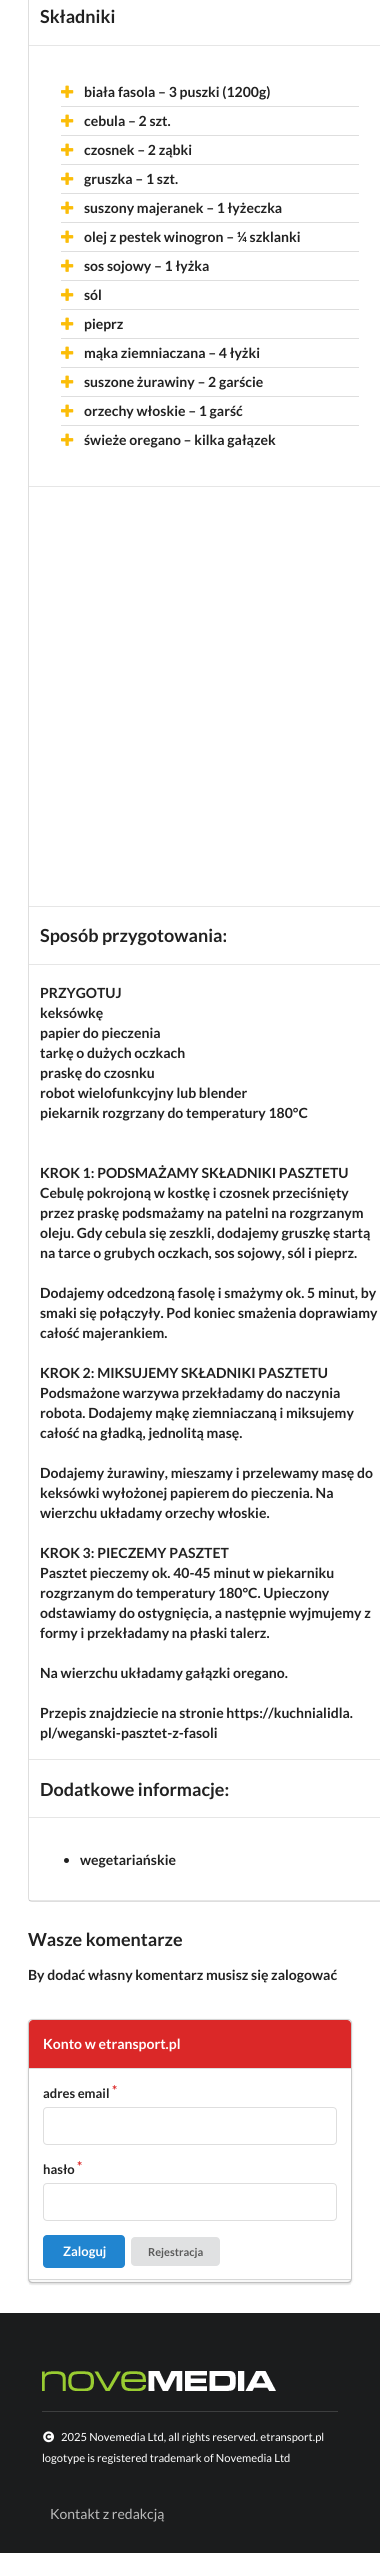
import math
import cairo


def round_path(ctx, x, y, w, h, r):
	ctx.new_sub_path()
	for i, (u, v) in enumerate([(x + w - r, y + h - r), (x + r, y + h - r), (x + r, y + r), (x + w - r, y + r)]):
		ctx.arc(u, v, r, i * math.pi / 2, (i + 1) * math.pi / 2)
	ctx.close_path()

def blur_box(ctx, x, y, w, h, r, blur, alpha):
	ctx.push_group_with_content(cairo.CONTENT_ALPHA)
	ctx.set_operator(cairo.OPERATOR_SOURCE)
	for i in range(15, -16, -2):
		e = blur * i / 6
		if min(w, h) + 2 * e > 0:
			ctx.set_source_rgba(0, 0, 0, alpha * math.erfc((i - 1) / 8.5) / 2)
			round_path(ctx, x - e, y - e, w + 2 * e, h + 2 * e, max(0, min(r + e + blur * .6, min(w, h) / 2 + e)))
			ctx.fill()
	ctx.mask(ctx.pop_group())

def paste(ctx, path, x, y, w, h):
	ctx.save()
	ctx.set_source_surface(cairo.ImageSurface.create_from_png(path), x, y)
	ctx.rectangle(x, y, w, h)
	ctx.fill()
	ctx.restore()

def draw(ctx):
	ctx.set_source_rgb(1, 1, 1)
	ctx.paint()
	round_path(ctx, 28.5, -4.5, 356, 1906, 3.5)
	ctx.set_source_rgb(0.871, 0.871, 0.871)
	ctx.set_line_width(1)
	ctx.stroke()
	ctx.set_source_rgb(0.902, 0.902, 0.902)
	ctx.rectangle(29, 45, 351, 1)
	ctx.fill()
	ctx.select_font_face('Lato', cairo.FONT_SLANT_NORMAL, cairo.FONT_WEIGHT_BOLD)
	ctx.set_font_size(18)
	ctx.set_source_rgb(0.129, 0.129, 0.129)
	ctx.move_to(40, 23)
	ctx.show_text('Składniki')
	ctx.set_source_rgb(0.902, 0.902, 0.902)
	ctx.rectangle(29, 486, 351, 1)
	ctx.fill()
	paste(ctx, 'media/1.png', 61, 85, 13, 13)
	ctx.set_font_size(14)
	ctx.set_source_rgb(0.129, 0.129, 0.129)
	ctx.move_to(84, 97)
	ctx.show_text('biała fasola – 3 puszki (1200g)')
	ctx.set_source_rgb(0.871, 0.871, 0.871)
	ctx.rectangle(61, 106, 298, 1)
	ctx.fill()
	paste(ctx, 'media/1.png', 61, 114, 13, 13)
	ctx.set_source_rgb(0.129, 0.129, 0.129)
	ctx.move_to(84, 126)
	ctx.show_text('cebula – 2 szt.')
	ctx.set_source_rgb(0.871, 0.871, 0.871)
	ctx.rectangle(61, 135, 298, 1)
	ctx.fill()
	paste(ctx, 'media/1.png', 61, 143, 13, 13)
	ctx.set_source_rgb(0.129, 0.129, 0.129)
	ctx.move_to(84, 155)
	ctx.show_text('czosnek – 2 ząbki')
	ctx.set_source_rgb(0.871, 0.871, 0.871)
	ctx.rectangle(61, 164, 298, 1)
	ctx.fill()
	paste(ctx, 'media/1.png', 61, 172, 13, 13)
	ctx.set_source_rgb(0.129, 0.129, 0.129)
	ctx.move_to(84, 184)
	ctx.show_text('gruszka – 1 szt.')
	ctx.set_source_rgb(0.871, 0.871, 0.871)
	ctx.rectangle(61, 193, 298, 1)
	ctx.fill()
	paste(ctx, 'media/1.png', 61, 201, 13, 13)
	ctx.set_source_rgb(0.129, 0.129, 0.129)
	ctx.move_to(84, 213)
	ctx.show_text('suszony majeranek – 1 łyżeczka')
	ctx.set_source_rgb(0.871, 0.871, 0.871)
	ctx.rectangle(61, 222, 298, 1)
	ctx.fill()
	paste(ctx, 'media/1.png', 61, 230, 13, 13)
	ctx.set_source_rgb(0.129, 0.129, 0.129)
	ctx.move_to(84, 242)
	ctx.show_text('olej z pestek winogron – ¼ szklanki')
	ctx.set_source_rgb(0.871, 0.871, 0.871)
	ctx.rectangle(61, 251, 298, 1)
	ctx.fill()
	paste(ctx, 'media/1.png', 61, 259, 13, 13)
	ctx.set_source_rgb(0.129, 0.129, 0.129)
	ctx.move_to(84, 271)
	ctx.show_text('sos sojowy – 1 łyżka')
	ctx.set_source_rgb(0.871, 0.871, 0.871)
	ctx.rectangle(61, 280, 298, 1)
	ctx.fill()
	paste(ctx, 'media/1.png', 61, 288, 13, 13)
	ctx.set_source_rgb(0.129, 0.129, 0.129)
	ctx.move_to(84, 300)
	ctx.show_text('sól')
	ctx.set_source_rgb(0.871, 0.871, 0.871)
	ctx.rectangle(61, 309, 298, 1)
	ctx.fill()
	paste(ctx, 'media/1.png', 61, 317, 13, 13)
	ctx.set_source_rgb(0.129, 0.129, 0.129)
	ctx.move_to(84, 329)
	ctx.show_text('pieprz')
	ctx.set_source_rgb(0.871, 0.871, 0.871)
	ctx.rectangle(61, 338, 298, 1)
	ctx.fill()
	paste(ctx, 'media/1.png', 61, 346, 13, 13)
	ctx.set_source_rgb(0.129, 0.129, 0.129)
	ctx.move_to(84, 358)
	ctx.show_text('mąka ziemniaczana – 4 łyżki')
	ctx.set_source_rgb(0.871, 0.871, 0.871)
	ctx.rectangle(61, 367, 298, 1)
	ctx.fill()
	paste(ctx, 'media/1.png', 61, 375, 13, 13)
	ctx.set_source_rgb(0.129, 0.129, 0.129)
	ctx.move_to(84, 387)
	ctx.show_text('suszone żurawiny – 2 garście')
	ctx.set_source_rgb(0.871, 0.871, 0.871)
	ctx.rectangle(61, 396, 298, 1)
	ctx.fill()
	paste(ctx, 'media/1.png', 61, 404, 13, 13)
	ctx.set_source_rgb(0.129, 0.129, 0.129)
	ctx.move_to(84, 416)
	ctx.show_text('orzechy włoskie – 1 garść')
	ctx.set_source_rgb(0.871, 0.871, 0.871)
	ctx.rectangle(61, 425, 298, 1)
	ctx.fill()
	paste(ctx, 'media/1.png', 61, 433, 13, 13)
	ctx.set_source_rgb(0.129, 0.129, 0.129)
	ctx.move_to(84, 445)
	ctx.show_text('świeże oregano – kilka gałązek')
	ctx.set_source_rgb(0.902, 0.902, 0.902)
	ctx.rectangle(29, 906, 351, 1)
	ctx.fill()
	ctx.rectangle(29, 964, 351, 1)
	ctx.fill()
	ctx.set_font_size(18)
	ctx.set_source_rgb(0.129, 0.129, 0.129)
	ctx.move_to(40, 942)
	ctx.show_text('Sposób przygotowania:')
	ctx.set_source_rgb(0.902, 0.902, 0.902)
	ctx.rectangle(29, 1759, 351, 1)
	ctx.fill()
	ctx.set_font_size(14)
	ctx.set_source_rgb(0.129, 0.129, 0.129)
	for x, y, s in [
		(40, 998, 'PRZYGOTUJ'),
		(40, 1018, 'keksówkę'),
		(40, 1038, 'papier do pieczenia'),
		(40, 1058, 'tarkę o dużych oczkach'),
		(40, 1078, 'praskę do czosnku'),
		(40, 1098, 'robot wielofunkcyjny lub blender'),
		(40, 1118, 'piekarnik rozgrzany do temperatury 180°C'),
		(40, 1178, 'KROK 1: PODSMAŻAMY SKŁADNIKI PASZTETU'),
		(40, 1198, 'Cebulę pokrojoną w kostkę i czosnek przeciśnięty'),
		(40, 1218, 'przez praskę podsmażamy na patelni na rozgrzanym'),
		(40, 1238, 'oleju. Gdy cebula się zeszkli, dodajemy gruszkę startą'),
		(40, 1258, 'na tarce o grubych oczkach, sos sojowy, sól i pieprz.'),
		(40, 1298, 'Dodajemy odcedzoną fasolę i smażymy ok. 5 minut, by'),
		(40, 1318, 'smaki się połączyły. Pod koniec smażenia doprawiamy'),
		(40, 1338, 'całość majerankiem.'),
		(40, 1378, 'KROK 2: MIKSUJEMY SKŁADNIKI PASZTETU'),
		(40, 1398, 'Podsmażone warzywa przekładamy do naczynia'),
		(40, 1418, 'robota. Dodajemy mąkę ziemniaczaną i miksujemy'),
		(40, 1438, 'całość na gładką, jednolitą masę.'),
		(40, 1478, 'Dodajemy żurawiny, mieszamy i przelewamy masę do'),
		(40, 1498, 'keksówki wyłożonej papierem do pieczenia. Na'),
		(40, 1518, 'wierzchu układamy orzechy włoskie.'),
		(40, 1558, 'KROK 3: PIECZEMY PASZTET'),
		(40, 1578, 'Pasztet pieczemy ok. 40-45 minut w piekarniku'),
		(40, 1598, 'rozgrzanym do temperatury 180°C. Upieczony'),
		(40, 1618, 'odstawiamy do ostygnięcia, a następnie wyjmujemy z'),
		(40, 1638, 'formy i przekładamy na płaski talerz.'),
		(40, 1678, 'Na wierzchu układamy gałązki oregano.'),
		(40, 1718, 'Przepis znajdziecie na stronie https://kuchnialidla.'),
		(40, 1738, 'pl/weganski-pasztet-z-fasoli'),
	]:
		ctx.move_to(x, y)
		ctx.show_text(s)
	ctx.set_source_rgb(0.902, 0.902, 0.902)
	ctx.rectangle(29, 1817, 351, 1)
	ctx.fill()
	ctx.set_font_size(18)
	ctx.set_source_rgb(0.129, 0.129, 0.129)
	ctx.move_to(40, 1796)
	ctx.show_text('Dodatkowe informacje:')
	ctx.set_source_rgba(0, 0, 0, 0.1)
	ctx.rectangle(29, 1900, 351, 1)
	ctx.fill()
	ctx.set_source_rgb(0.129, 0.129, 0.129)
	ctx.arc(66.5, 1860.5, 2.5, 0, 2 * math.pi)
	ctx.fill()
	ctx.set_font_size(14)
	ctx.move_to(80, 1865)
	ctx.show_text('wegetariańskie')
	ctx.set_font_size(18)
	ctx.move_to(28, 1946)
	ctx.show_text('Wasze komentarze')
	ctx.set_font_size(14)
	ctx.move_to(28, 1980)
	ctx.show_text('By dodać własny komentarz musisz się zalogować')
	ctx.set_source_rgb(0.133, 0.141, 0.149)
	blur_box(ctx, 28, 2020, 324, 264, 4, 1, 0.15)
	round_path(ctx, 28.5, 2019.5, 323, 263, 3.5)
	ctx.set_source_rgba(0.133, 0.141, 0.149, 0.15)
	ctx.stroke()
	ctx.set_source_rgb(0.859, 0.157, 0.157)
	ctx.new_path()
	ctx.move_to(33, 2020)
	ctx.line_to(347, 2020)
	ctx.curve_to(349, 2020, 351, 2022, 351, 2024)
	ctx.line_to(351, 2068)
	ctx.line_to(29, 2068)
	ctx.line_to(29, 2024)
	ctx.curve_to(29, 2022, 31, 2020, 33, 2020)
	ctx.close_path()
	ctx.fill()
	ctx.set_source_rgb(1, 1, 1)
	ctx.move_to(43, 2049)
	ctx.show_text('Konto w etransport.pl')
	ctx.new_path()
	ctx.move_to(29, 2068)
	ctx.line_to(351, 2068)
	ctx.line_to(351, 2278)
	ctx.curve_to(351, 2280, 349, 2282, 347, 2282)
	ctx.line_to(33, 2282)
	ctx.curve_to(31, 2282, 29, 2280, 29, 2278)
	ctx.close_path()
	ctx.fill()
	ctx.set_source_rgb(0.871, 0.871, 0.871)
	ctx.rectangle(29, 2068, 322, 1)
	ctx.fill()
	ctx.set_font_size(13)
	ctx.set_source_rgb(0.859, 0.157, 0.157)
	ctx.move_to(112, 2095)
	ctx.show_text('*')
	ctx.set_source_rgb(0.129, 0.129, 0.129)
	ctx.move_to(43, 2098)
	ctx.show_text('adres email')
	round_path(ctx, 43.5, 2107.5, 293, 37, 3.5)
	ctx.set_source_rgb(0.871, 0.871, 0.871)
	ctx.stroke()
	ctx.set_source_rgb(0.859, 0.157, 0.157)
	ctx.move_to(77, 2171)
	ctx.show_text('*')
	ctx.set_source_rgb(0.129, 0.129, 0.129)
	ctx.move_to(43, 2174)
	ctx.show_text('hasło')
	round_path(ctx, 43.5, 2183.5, 293, 37, 3.5)
	ctx.set_source_rgb(0.871, 0.871, 0.871)
	ctx.stroke()
	ctx.set_source_rgb(0.129, 0.522, 0.816)
	round_path(ctx, 43, 2235, 82, 33, 4)
	ctx.fill()
	ctx.set_source_rgb(1, 1, 1)
	ctx.move_to(63, 2256)
	ctx.show_text('Zaloguj')
	ctx.set_source_rgb(0.878, 0.882, 0.886)
	round_path(ctx, 131, 2237, 89, 29, 4)
	ctx.fill()
	ctx.set_font_size(11)
	ctx.set_source_rgb(0.353, 0.353, 0.353)
	ctx.move_to(148, 2256)
	ctx.show_text('Rejestracja')
	ctx.set_source_rgba(0, 0, 0, 0.03)
	ctx.rectangle(29, 2280, 322, 5)
	ctx.fill()
	ctx.set_source_rgb(0.843, 0.847, 0.847)
	ctx.rectangle(29, 2279, 322, 1)
	ctx.fill()
	ctx.set_source_rgb(0.106, 0.11, 0.114)
	ctx.rectangle(0, 2313, 380, 240)
	ctx.fill()
	paste(ctx, 'media/2.png', 42, 2371, 234, 20)
	ctx.set_source_rgb(0.239, 0.243, 0.247)
	ctx.rectangle(42, 2411, 296, 1)
	ctx.fill()
	paste(ctx, 'media/3.png', 43, 2431, 11, 12)
	ctx.select_font_face('Lato')
	ctx.set_font_size(11.2)
	ctx.set_source_rgb(1, 1, 1)
	ctx.move_to(61, 2441)
	ctx.show_text('2025 Novemedia Ltd, all rights reserved. etransport.pl')
	ctx.move_to(42, 2462)
	ctx.show_text('logotype is registered trademark of Novemedia Ltd')
	ctx.set_font_size(14)
	ctx.set_source_rgb(0.733, 0.733, 0.733)
	ctx.move_to(50, 2519)
	ctx.show_text('Kontakt z redakcją')


surface = cairo.ImageSurface(cairo.FORMAT_RGB24, 380, 2553)
ctx = cairo.Context(surface)
options = cairo.FontOptions()
options.set_hint_metrics(cairo.HINT_METRICS_OFF)
options.set_hint_style(cairo.HINT_STYLE_NONE)
ctx.set_font_options(options)
ctx.set_miter_limit(4)
draw(ctx)
surface.write_to_png('image.png')
